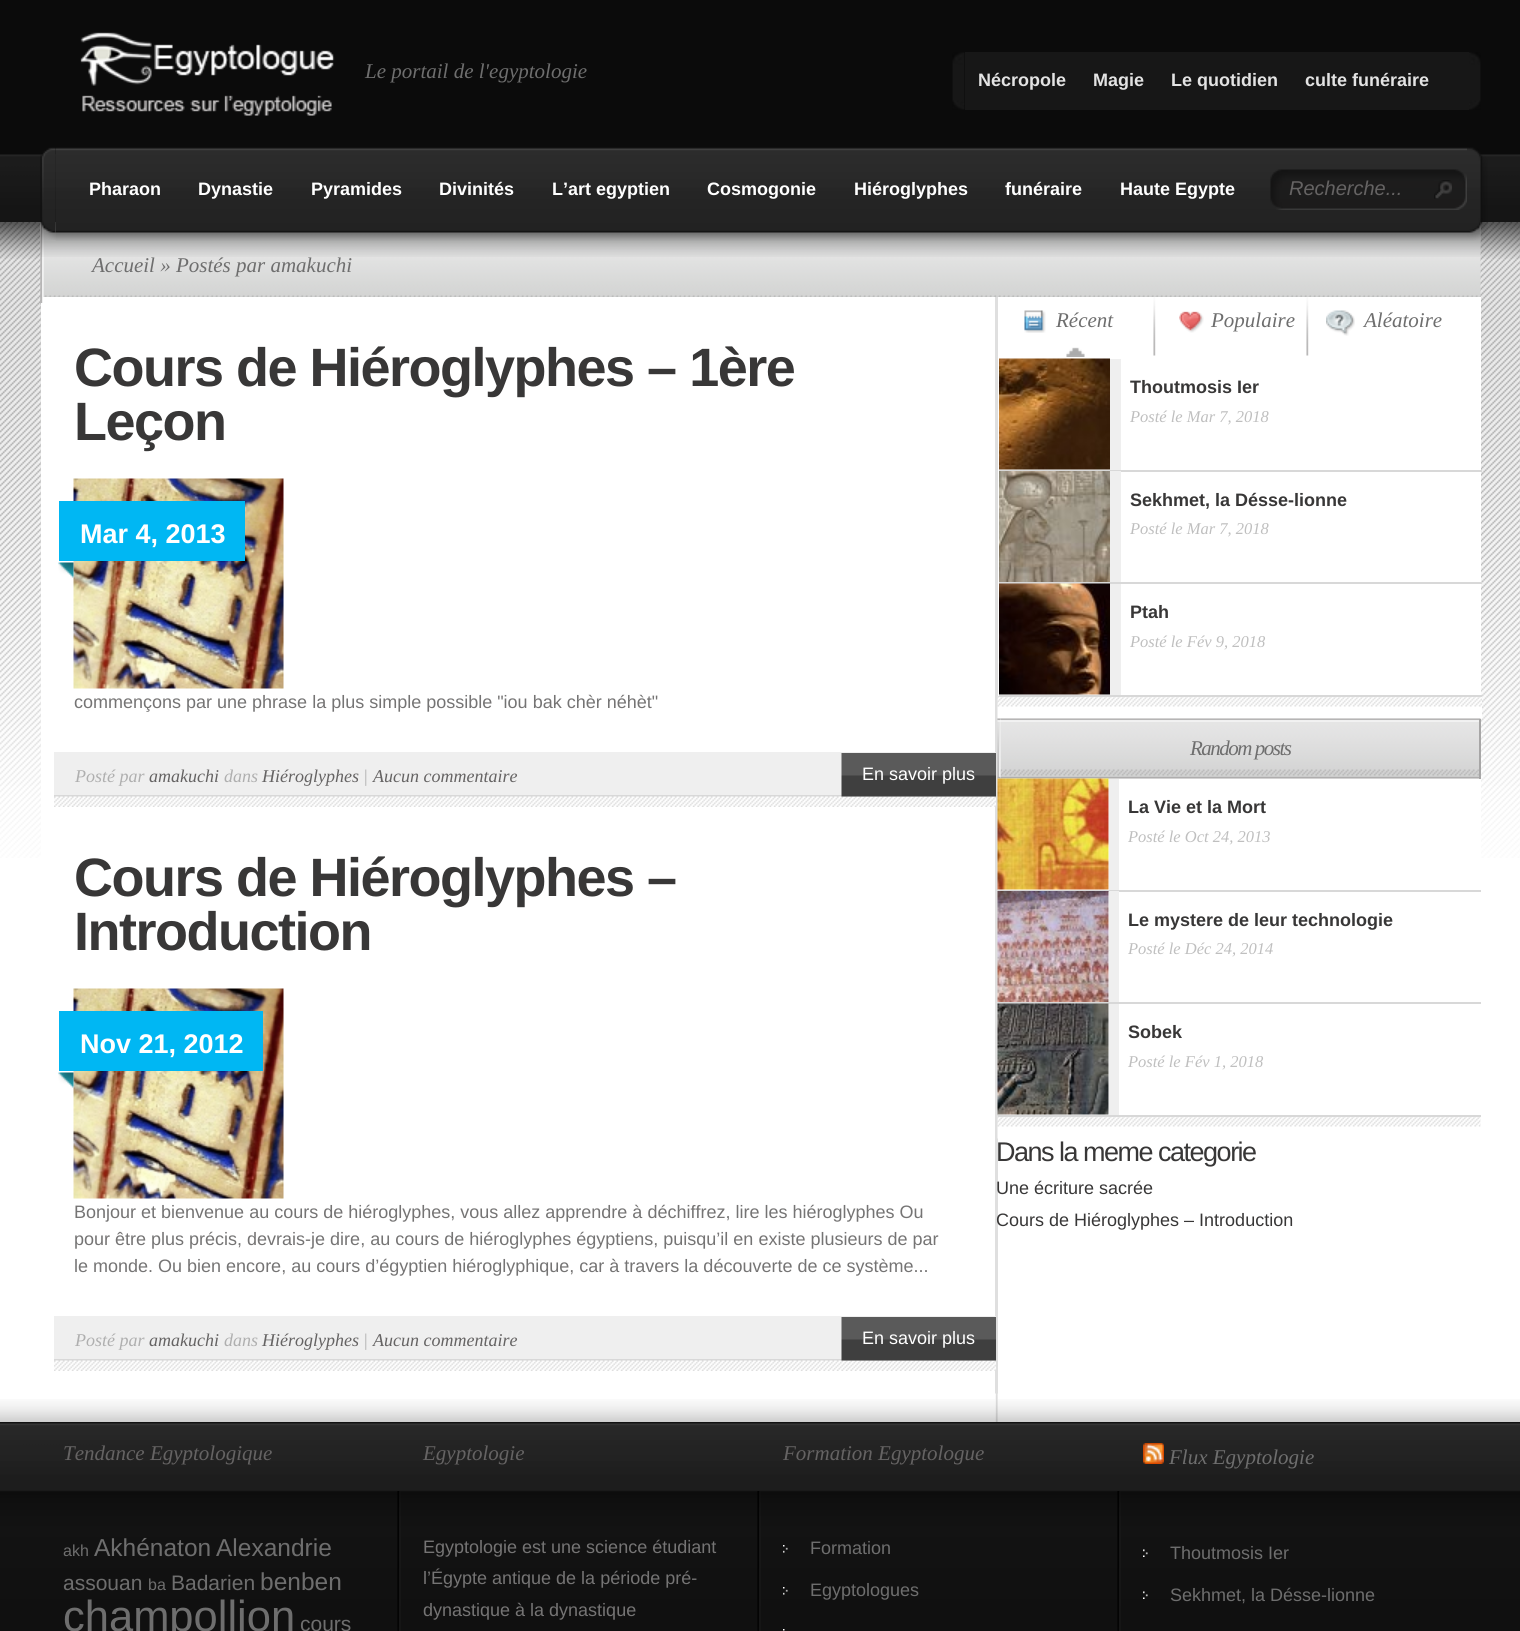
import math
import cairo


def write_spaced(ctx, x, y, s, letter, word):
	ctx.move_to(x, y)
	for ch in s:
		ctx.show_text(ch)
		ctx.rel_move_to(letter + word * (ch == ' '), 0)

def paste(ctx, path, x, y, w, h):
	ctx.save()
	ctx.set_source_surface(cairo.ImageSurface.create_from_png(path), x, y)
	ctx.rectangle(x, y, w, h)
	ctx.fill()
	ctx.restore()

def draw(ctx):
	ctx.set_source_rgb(1, 1, 1)
	ctx.paint()
	ctx.set_source_rgb(0.043, 0.043, 0.043)
	ctx.rectangle(0, 0, 1520, 155)
	ctx.fill()
	paste(ctx, 'media/1.png', 0, 154, 1520, 68)
	paste(ctx, 'media/2.png', 80, 32, 255, 84)
	ctx.select_font_face('Liberation Serif', cairo.FONT_SLANT_ITALIC)
	ctx.set_font_size(21)
	ctx.set_source_rgb(0.431, 0.431, 0.431)
	ctx.move_to(365, 78)
	ctx.show_text('Le portail de l\'egyptologie')
	paste(ctx, 'media/3.png', 952, 52, 13, 58)
	ctx.set_source_rgb(0.09, 0.09, 0.09)
	ctx.rectangle(965, 52, 504, 58)
	ctx.fill()
	ctx.select_font_face('Liberation Sans', cairo.FONT_SLANT_NORMAL, cairo.FONT_WEIGHT_BOLD)
	ctx.set_font_size(18)
	ctx.set_source_rgb(0.89, 0.89, 0.89)
	for x, y, s in [
		(978, 86, 'Nécropole'),
		(1093, 86, 'Magie'),
		(1171, 86, 'Le quotidien'),
		(1305, 86, 'culte funéraire'),
	]:
		ctx.move_to(x, y)
		ctx.show_text(s)
	paste(ctx, 'media/4.png', 1469, 52, 12, 58)
	paste(ctx, 'media/10.png', 0, 222, 1520, 636)
	paste(ctx, 'media/11.png', 0, 222, 1520, 37)
	paste(ctx, 'media/12.png', 40, 222, 1441, 83)
	ctx.set_source_rgb(1, 1, 1)
	ctx.rectangle(41, 297, 1440, 561)
	ctx.fill()
	paste(ctx, 'media/14.png', 40, 222, 4, 81)
	paste(ctx, 'media/13.png', 40, 222, 1441, 35)
	paste(ctx, 'media/5.png', 40, 147, 16, 93)
	paste(ctx, 'media/6.png', 55, 147, 1412, 94)
	for x, y, s in [
		(89, 195, 'Pharaon'),
		(198, 195, 'Dynastie'),
		(311, 195, 'Pyramides'),
		(439, 195, 'Divinités'),
		(552, 195, 'L’art egyptien'),
		(707, 195, 'Cosmogonie'),
		(854, 195, 'Hiéroglyphes'),
		(1005, 195, 'funéraire'),
		(1120, 195, 'Haute Egypte'),
	]:
		ctx.move_to(x, y)
		ctx.show_text(s)
	paste(ctx, 'media/7.png', 1270, 169, 197, 41)
	ctx.select_font_face('Liberation Sans', cairo.FONT_SLANT_ITALIC)
	ctx.set_font_size(20)
	ctx.set_source_rgb(0.396, 0.388, 0.388)
	ctx.move_to(1289, 195)
	ctx.show_text('Recherche...')
	paste(ctx, 'media/8.png', 1434, 180, 18, 19)
	paste(ctx, 'media/9.png', 1467, 147, 21, 94)
	ctx.set_source_rgb(0.875, 0.875, 0.875)
	ctx.rectangle(995, 297, 3, 1097)
	ctx.fill()
	ctx.select_font_face('Liberation Serif', cairo.FONT_SLANT_ITALIC)
	ctx.set_font_size(21)
	ctx.set_source_rgb(0.431, 0.431, 0.431)
	ctx.move_to(92, 272)
	ctx.show_text('Accueil » Postés par amakuchi')
	ctx.select_font_face('Liberation Sans', cairo.FONT_SLANT_NORMAL, cairo.FONT_WEIGHT_BOLD)
	ctx.set_font_size(54)
	ctx.set_source_rgb(0.22, 0.216, 0.216)
	write_spaced(ctx, 74, 386, 'Cours de Hiéroglyphes – 1ère', -1.5, 0)
	write_spaced(ctx, 74, 440, 'Leçon', -1.5, 0)
	paste(ctx, 'media/15.png', 73, 478, 211, 211)
	paste(ctx, 'media/16.png', 58, 562, 16, 16)
	ctx.set_source_rgb(0, 0.718, 0.953)
	ctx.rectangle(59, 501, 186, 60)
	ctx.fill()
	ctx.set_font_size(27)
	ctx.set_source_rgb(1, 1, 1)
	ctx.move_to(80, 543)
	ctx.show_text('Mar 4, 2013')
	ctx.select_font_face('Liberation Sans')
	ctx.set_font_size(18)
	ctx.set_source_rgb(0.459, 0.455, 0.455)
	ctx.move_to(74, 708)
	ctx.show_text('commençons par une phrase la plus simple possible "iou bak chèr néhèt"')
	ctx.set_source_rgb(0.937, 0.937, 0.937)
	ctx.rectangle(54, 752, 942, 43)
	ctx.fill()
	paste(ctx, 'media/17.png', 54, 795, 942, 12)
	ctx.select_font_face('Liberation Serif', cairo.FONT_SLANT_ITALIC)
	ctx.set_source_rgb(0.686, 0.686, 0.686)
	ctx.move_to(75, 782)
	ctx.show_text('Posté par')
	ctx.set_source_rgb(0.396, 0.388, 0.388)
	ctx.move_to(149, 782)
	ctx.show_text('amakuchi')
	ctx.set_source_rgb(0.686, 0.686, 0.686)
	ctx.move_to(224, 782)
	ctx.show_text('dans')
	ctx.set_source_rgb(0.396, 0.388, 0.388)
	ctx.move_to(262, 782)
	ctx.show_text('Hiéroglyphes')
	ctx.set_source_rgb(0.686, 0.686, 0.686)
	ctx.move_to(363, 782)
	ctx.show_text('|')
	ctx.set_source_rgb(0.396, 0.388, 0.388)
	ctx.move_to(373, 782)
	ctx.show_text('Aucun commentaire')
	paste(ctx, 'media/18.png', 841, 753, 155, 44)
	ctx.select_font_face('Liberation Sans')
	ctx.set_source_rgb(1, 1, 1)
	ctx.move_to(862, 780)
	ctx.show_text('En savoir plus')
	ctx.select_font_face('Liberation Sans', cairo.FONT_SLANT_NORMAL, cairo.FONT_WEIGHT_BOLD)
	ctx.set_font_size(54)
	ctx.set_source_rgb(0.22, 0.216, 0.216)
	write_spaced(ctx, 74, 896, 'Cours de Hiéroglyphes –', -1.5, 0)
	write_spaced(ctx, 74, 950, 'Introduction', -1.5, 0)
	paste(ctx, 'media/15.png', 73, 988, 211, 211)
	paste(ctx, 'media/16.png', 58, 1072, 16, 16)
	ctx.set_source_rgb(0, 0.718, 0.953)
	ctx.rectangle(59, 1011, 204, 60)
	ctx.fill()
	ctx.set_font_size(27)
	ctx.set_source_rgb(1, 1, 1)
	ctx.move_to(80, 1053)
	ctx.show_text('Nov 21, 2012')
	ctx.select_font_face('Liberation Sans')
	ctx.set_font_size(18)
	ctx.set_source_rgb(0.459, 0.455, 0.455)
	for x, y, s in [
		(74, 1218, 'Bonjour et bienvenue au cours de hiéroglyphes, vous allez apprendre à déchiffrez, lire les hiéroglyphes Ou'),
		(74, 1245, 'pour être plus précis, devrais-je dire, au cours de hiéroglyphes égyptiens, puisqu’il en existe plusieurs de par'),
		(74, 1272, 'le monde. Ou bien encore, au cours d’égyptien hiéroglyphique, car à travers la découverte de ce système...'),
	]:
		ctx.move_to(x, y)
		ctx.show_text(s)
	ctx.set_source_rgb(0.937, 0.937, 0.937)
	ctx.rectangle(54, 1316, 942, 43)
	ctx.fill()
	paste(ctx, 'media/19.png', 54, 1359, 942, 12)
	ctx.select_font_face('Liberation Serif', cairo.FONT_SLANT_ITALIC)
	ctx.set_source_rgb(0.686, 0.686, 0.686)
	ctx.move_to(75, 1346)
	ctx.show_text('Posté par')
	ctx.set_source_rgb(0.396, 0.388, 0.388)
	ctx.move_to(149, 1346)
	ctx.show_text('amakuchi')
	ctx.set_source_rgb(0.686, 0.686, 0.686)
	ctx.move_to(224, 1346)
	ctx.show_text('dans')
	ctx.set_source_rgb(0.396, 0.388, 0.388)
	ctx.move_to(262, 1346)
	ctx.show_text('Hiéroglyphes')
	ctx.set_source_rgb(0.686, 0.686, 0.686)
	ctx.move_to(363, 1346)
	ctx.show_text('|')
	ctx.set_source_rgb(0.396, 0.388, 0.388)
	ctx.move_to(373, 1346)
	ctx.show_text('Aucun commentaire')
	paste(ctx, 'media/20.png', 841, 1317, 155, 44)
	ctx.select_font_face('Liberation Sans')
	ctx.set_source_rgb(1, 1, 1)
	ctx.move_to(862, 1344)
	ctx.show_text('En savoir plus')
	paste(ctx, 'media/21.png', 1153, 297, 3, 59)
	paste(ctx, 'media/22.png', 1066, 347, 19, 10)
	paste(ctx, 'media/23.png', 1024, 310, 22, 23)
	ctx.select_font_face('Liberation Serif', cairo.FONT_SLANT_ITALIC)
	ctx.set_font_size(21)
	ctx.set_source_rgb(0.431, 0.431, 0.431)
	ctx.move_to(1056, 327)
	ctx.show_text('Récent')
	paste(ctx, 'media/21.png', 1306, 297, 3, 59)
	paste(ctx, 'media/24.png', 1179, 311, 25, 22)
	ctx.move_to(1211, 327)
	ctx.show_text('Populaire')
	paste(ctx, 'media/25.png', 1326, 310, 29, 26)
	ctx.move_to(1364, 327)
	ctx.show_text('Aléatoire')
	paste(ctx, 'media/26.png', 997, 696, 485, 23)
	ctx.set_source_rgb(0.847, 0.847, 0.847)
	ctx.rectangle(999, 470, 483, 2)
	ctx.fill()
	ctx.set_source_rgb(0.937, 0.937, 0.937)
	ctx.rectangle(1110, 359, 11, 111)
	ctx.fill()
	paste(ctx, 'media/27.png', 999, 358, 111, 112)
	ctx.select_font_face('Liberation Sans', cairo.FONT_SLANT_NORMAL, cairo.FONT_WEIGHT_BOLD)
	ctx.set_font_size(18)
	ctx.set_source_rgb(0.22, 0.216, 0.216)
	ctx.move_to(1130, 393)
	ctx.show_text('Thoutmosis Ier')
	ctx.select_font_face('Liberation Serif', cairo.FONT_SLANT_ITALIC)
	ctx.set_font_size(16.5)
	ctx.set_source_rgb(0.749, 0.749, 0.749)
	ctx.move_to(1130, 422)
	ctx.show_text('Posté le Mar 7, 2018')
	ctx.set_source_rgb(0.847, 0.847, 0.847)
	ctx.rectangle(999, 582, 483, 2)
	ctx.fill()
	ctx.set_source_rgb(0.937, 0.937, 0.937)
	ctx.rectangle(1110, 471, 11, 111)
	ctx.fill()
	paste(ctx, 'media/28.png', 999, 471, 111, 111)
	ctx.select_font_face('Liberation Sans', cairo.FONT_SLANT_NORMAL, cairo.FONT_WEIGHT_BOLD)
	ctx.set_font_size(18)
	ctx.set_source_rgb(0.22, 0.216, 0.216)
	ctx.move_to(1130, 506)
	ctx.show_text('Sekhmet, la Désse-lionne')
	ctx.select_font_face('Liberation Serif', cairo.FONT_SLANT_ITALIC)
	ctx.set_font_size(16.5)
	ctx.set_source_rgb(0.749, 0.749, 0.749)
	ctx.move_to(1130, 534)
	ctx.show_text('Posté le Mar 7, 2018')
	ctx.set_source_rgb(0.847, 0.847, 0.847)
	ctx.rectangle(999, 695, 483, 2)
	ctx.fill()
	ctx.set_source_rgb(0.937, 0.937, 0.937)
	ctx.rectangle(1110, 584, 11, 111)
	ctx.fill()
	paste(ctx, 'media/29.png', 999, 583, 111, 112)
	ctx.select_font_face('Liberation Sans', cairo.FONT_SLANT_NORMAL, cairo.FONT_WEIGHT_BOLD)
	ctx.set_font_size(18)
	ctx.set_source_rgb(0.22, 0.216, 0.216)
	ctx.move_to(1130, 618)
	ctx.show_text('Ptah')
	ctx.select_font_face('Liberation Serif', cairo.FONT_SLANT_ITALIC)
	ctx.set_font_size(16.5)
	ctx.set_source_rgb(0.749, 0.749, 0.749)
	ctx.move_to(1130, 647)
	ctx.show_text('Posté le Fév 9, 2018')
	paste(ctx, 'media/30.png', 997, 1116, 484, 23)
	paste(ctx, 'media/31.png', 997, 718, 4, 61)
	paste(ctx, 'media/32.png', 1000, 718, 481, 61)
	ctx.set_source_rgb(0.655, 0.651, 0.651)
	ctx.rectangle(1479, 719, 2, 60)
	ctx.fill()
	ctx.set_font_size(21)
	ctx.set_source_rgb(0.431, 0.431, 0.431)
	write_spaced(ctx, 1190, 755, 'Random posts', -1.5, 0)
	ctx.set_source_rgb(0.847, 0.847, 0.847)
	ctx.rectangle(998, 890, 483, 2)
	ctx.fill()
	ctx.set_source_rgb(0.937, 0.937, 0.937)
	ctx.rectangle(1109, 779, 10, 111)
	ctx.fill()
	paste(ctx, 'media/33.png', 997, 778, 112, 112)
	ctx.select_font_face('Liberation Sans', cairo.FONT_SLANT_NORMAL, cairo.FONT_WEIGHT_BOLD)
	ctx.set_font_size(18)
	ctx.set_source_rgb(0.22, 0.216, 0.216)
	ctx.move_to(1128, 813)
	ctx.show_text('La Vie et la Mort')
	ctx.select_font_face('Liberation Serif', cairo.FONT_SLANT_ITALIC)
	ctx.set_font_size(16.5)
	ctx.set_source_rgb(0.749, 0.749, 0.749)
	ctx.move_to(1128, 842)
	ctx.show_text('Posté le Oct 24, 2013')
	ctx.set_source_rgb(0.847, 0.847, 0.847)
	ctx.rectangle(998, 1002, 483, 2)
	ctx.fill()
	ctx.set_source_rgb(0.937, 0.937, 0.937)
	ctx.rectangle(1109, 891, 10, 111)
	ctx.fill()
	paste(ctx, 'media/34.png', 997, 891, 112, 111)
	ctx.select_font_face('Liberation Sans', cairo.FONT_SLANT_NORMAL, cairo.FONT_WEIGHT_BOLD)
	ctx.set_font_size(18)
	ctx.set_source_rgb(0.22, 0.216, 0.216)
	ctx.move_to(1128, 926)
	ctx.show_text('Le mystere de leur technologie')
	ctx.select_font_face('Liberation Serif', cairo.FONT_SLANT_ITALIC)
	ctx.set_font_size(16.5)
	ctx.set_source_rgb(0.749, 0.749, 0.749)
	ctx.move_to(1128, 954)
	ctx.show_text('Posté le Déc 24, 2014')
	ctx.set_source_rgb(0.847, 0.847, 0.847)
	ctx.rectangle(998, 1115, 483, 2)
	ctx.fill()
	ctx.set_source_rgb(0.937, 0.937, 0.937)
	ctx.rectangle(1109, 1004, 10, 111)
	ctx.fill()
	paste(ctx, 'media/35.png', 997, 1003, 112, 112)
	ctx.select_font_face('Liberation Sans', cairo.FONT_SLANT_NORMAL, cairo.FONT_WEIGHT_BOLD)
	ctx.set_font_size(18)
	ctx.set_source_rgb(0.22, 0.216, 0.216)
	ctx.move_to(1128, 1038)
	ctx.show_text('Sobek')
	ctx.select_font_face('Liberation Serif', cairo.FONT_SLANT_ITALIC)
	ctx.set_font_size(16.5)
	ctx.set_source_rgb(0.749, 0.749, 0.749)
	ctx.move_to(1128, 1067)
	ctx.show_text('Posté le Fév 1, 2018')
	ctx.select_font_face('Liberation Sans')
	ctx.set_font_size(27)
	ctx.set_source_rgb(0.22, 0.216, 0.216)
	write_spaced(ctx, 996, 1161, 'Dans la meme categorie', -1.5, 0)
	ctx.set_font_size(18)
	ctx.move_to(996, 1194)
	ctx.show_text('Une écriture sacrée')
	ctx.move_to(996, 1226)
	ctx.show_text('Cours de Hiéroglyphes – Introduction')
	paste(ctx, 'media/36.png', 0, 1399, 1520, 23)
	paste(ctx, 'media/37.png', 995, 1393, 3, 29)
	paste(ctx, 'media/38.png', 0, 1422, 1520, 209)
	paste(ctx, 'media/39.png', 397, 1491, 4, 140)
	ctx.select_font_face('Liberation Serif', cairo.FONT_SLANT_ITALIC)
	ctx.set_font_size(21)
	ctx.set_source_rgb(0.396, 0.388, 0.388)
	ctx.move_to(63, 1460)
	ctx.show_text('Tendance Egyptologique')
	ctx.select_font_face('Liberation Sans')
	ctx.set_font_size(16)
	ctx.set_source_rgb(0.431, 0.431, 0.431)
	ctx.move_to(63, 1556)
	ctx.show_text('akh')
	ctx.set_font_size(24.5)
	ctx.move_to(94, 1556)
	ctx.show_text('Akhénaton')
	ctx.move_to(216, 1556)
	ctx.show_text('Alexandrie')
	ctx.set_font_size(21)
	ctx.move_to(63, 1590)
	ctx.show_text('assouan')
	ctx.set_font_size(16)
	ctx.move_to(148, 1590)
	ctx.show_text('ba')
	ctx.set_font_size(21)
	ctx.move_to(171, 1590)
	ctx.show_text('Badarien')
	ctx.set_font_size(24.5)
	ctx.move_to(260, 1590)
	ctx.show_text('benben')
	ctx.set_font_size(43.5)
	ctx.move_to(63, 1631)
	ctx.show_text('champollion')
	ctx.set_font_size(21)
	ctx.move_to(300, 1631)
	ctx.show_text('cours')
	paste(ctx, 'media/39.png', 757, 1491, 4, 140)
	ctx.select_font_face('Liberation Serif', cairo.FONT_SLANT_ITALIC)
	ctx.set_source_rgb(0.396, 0.388, 0.388)
	ctx.move_to(423, 1460)
	ctx.show_text('Egyptologie')
	ctx.select_font_face('Liberation Sans')
	ctx.set_font_size(18)
	ctx.set_source_rgb(0.459, 0.455, 0.455)
	for x, y, s in [
		(423, 1553, 'Egyptologie est une science étudiant'),
		(423, 1584, 'l’Égypte antique de la période pré-'),
		(423, 1616, 'dynastique à la dynastique'),
	]:
		ctx.move_to(x, y)
		ctx.show_text(s)
	paste(ctx, 'media/39.png', 1117, 1491, 4, 140)
	ctx.select_font_face('Liberation Serif', cairo.FONT_SLANT_ITALIC)
	ctx.set_font_size(21)
	ctx.set_source_rgb(0.396, 0.388, 0.388)
	ctx.move_to(783, 1460)
	ctx.show_text('Formation Egyptologue')
	paste(ctx, 'media/40.png', 783, 1545, 5, 8)
	ctx.select_font_face('Liberation Sans')
	ctx.set_font_size(18)
	ctx.set_source_rgb(0.431, 0.431, 0.431)
	ctx.move_to(810, 1554)
	ctx.show_text('Formation')
	paste(ctx, 'media/41.png', 783, 1587, 5, 8)
	ctx.move_to(810, 1596)
	ctx.show_text('Egyptologues')
	paste(ctx, 'media/42.png', 783, 1629, 2, 2)
	paste(ctx, 'media/43.png', 1143, 1443, 21, 21)
	ctx.select_font_face('Liberation Serif', cairo.FONT_SLANT_ITALIC)
	ctx.set_font_size(21)
	ctx.move_to(1169, 1464)
	ctx.show_text('Flux Egyptologie')
	paste(ctx, 'media/44.png', 1143, 1549, 5, 8)
	ctx.select_font_face('Liberation Sans')
	ctx.set_font_size(18)
	ctx.move_to(1170, 1559)
	ctx.show_text('Thoutmosis Ier')
	paste(ctx, 'media/45.png', 1143, 1591, 5, 8)
	ctx.move_to(1170, 1601)
	ctx.show_text('Sekhmet, la Désse-lionne')


surface = cairo.ImageSurface(cairo.FORMAT_RGB24, 1520, 1631)
ctx = cairo.Context(surface)
options = cairo.FontOptions()
options.set_hint_metrics(cairo.HINT_METRICS_OFF)
options.set_hint_style(cairo.HINT_STYLE_NONE)
ctx.set_font_options(options)
ctx.set_miter_limit(4)
draw(ctx)
surface.write_to_png('image.png')
